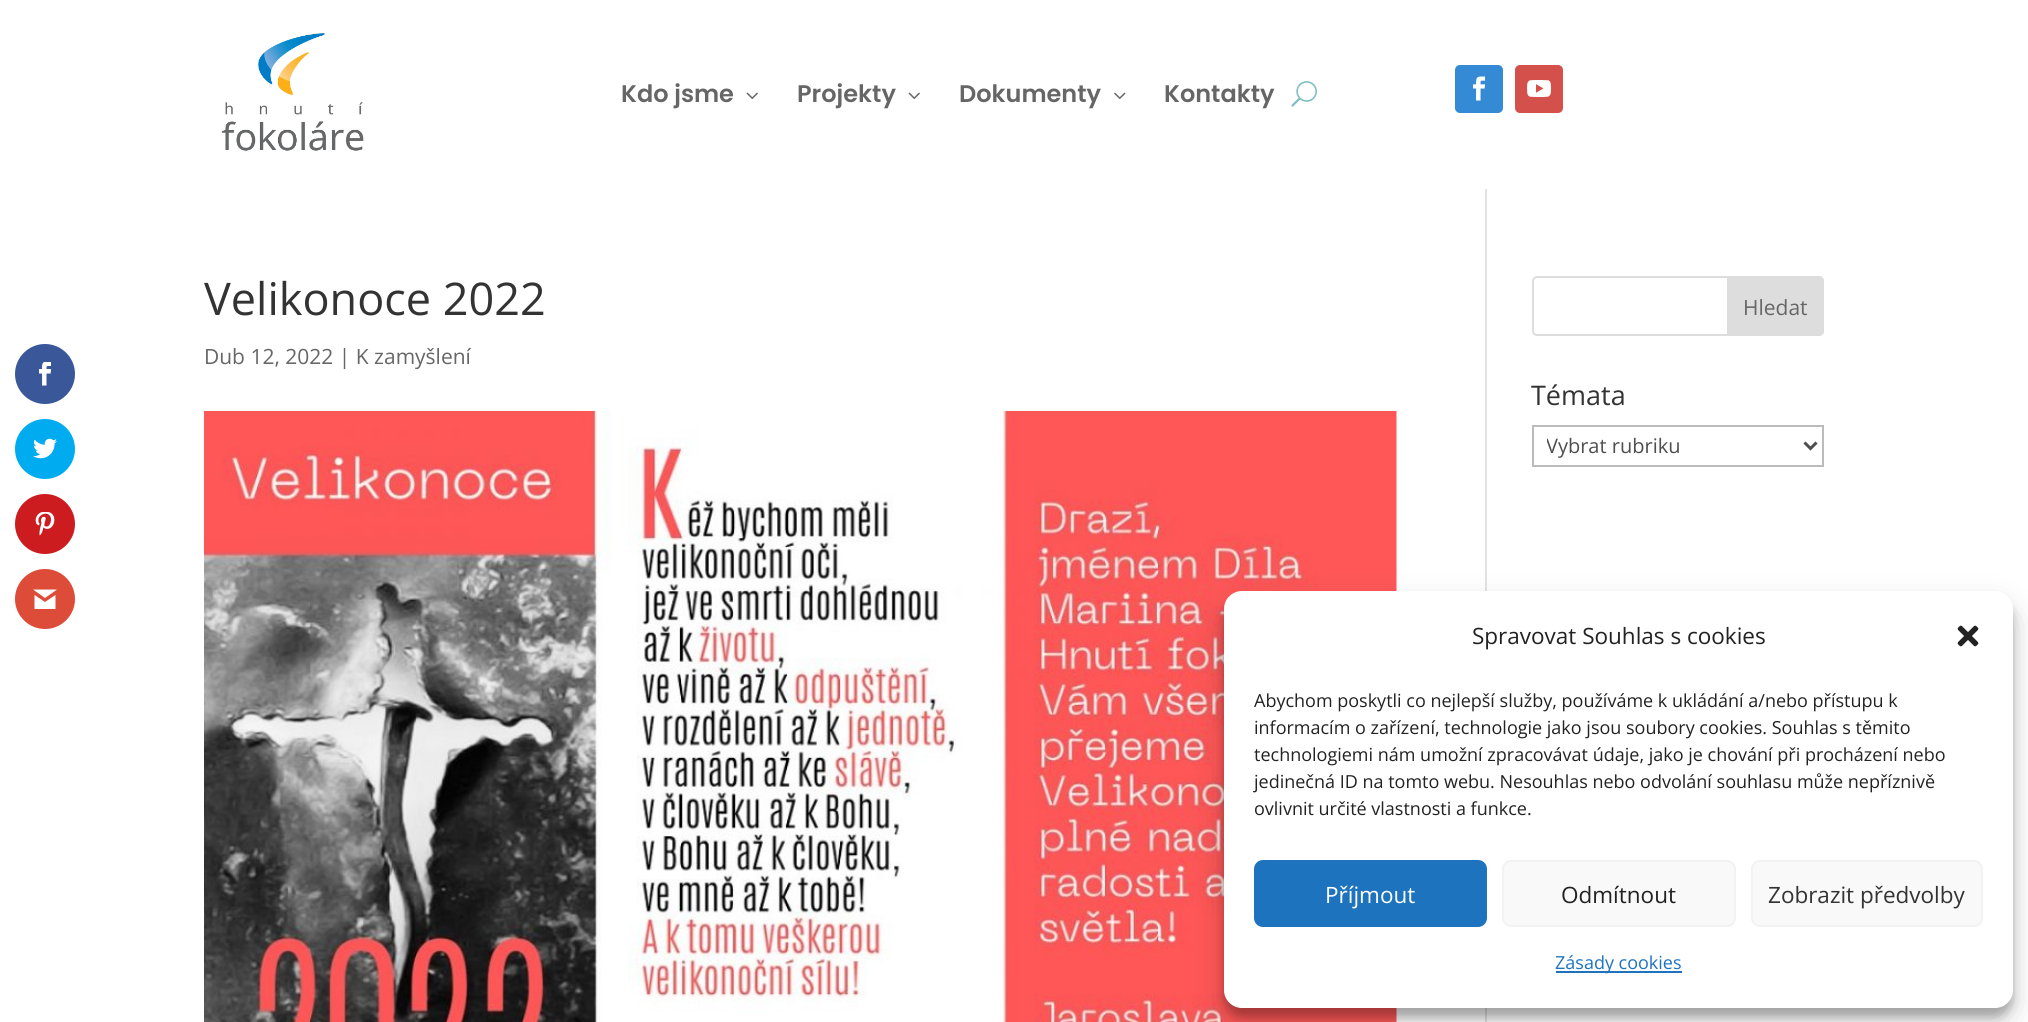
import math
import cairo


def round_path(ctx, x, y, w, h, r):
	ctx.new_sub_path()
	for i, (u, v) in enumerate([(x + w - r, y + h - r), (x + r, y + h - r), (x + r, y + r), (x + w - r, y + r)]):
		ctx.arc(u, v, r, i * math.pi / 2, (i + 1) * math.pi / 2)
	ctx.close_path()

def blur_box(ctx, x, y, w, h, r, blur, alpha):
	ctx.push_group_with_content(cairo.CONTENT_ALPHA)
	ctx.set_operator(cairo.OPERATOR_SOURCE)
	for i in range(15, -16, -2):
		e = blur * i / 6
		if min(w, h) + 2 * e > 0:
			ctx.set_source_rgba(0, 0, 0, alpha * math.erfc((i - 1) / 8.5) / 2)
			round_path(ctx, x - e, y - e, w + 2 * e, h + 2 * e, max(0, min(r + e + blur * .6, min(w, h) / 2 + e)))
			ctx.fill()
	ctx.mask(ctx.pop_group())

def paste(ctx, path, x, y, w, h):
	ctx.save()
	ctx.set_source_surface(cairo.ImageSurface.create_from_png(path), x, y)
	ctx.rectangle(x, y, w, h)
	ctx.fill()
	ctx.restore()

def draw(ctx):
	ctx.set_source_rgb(1, 1, 1)
	ctx.paint()
	paste(ctx, 'media/1.png', 221, 33, 143, 118)
	ctx.select_font_face('Poppins SemiBold')
	ctx.set_font_size(24)
	ctx.set_source_rgb(0.4, 0.4, 0.4)
	ctx.move_to(621, 102)
	ctx.show_text('Kdo jsme')
	paste(ctx, 'media/2.png', 746, 92, 12, 7)
	ctx.move_to(797, 102)
	ctx.show_text('Projekty')
	paste(ctx, 'media/2.png', 908, 92, 12, 7)
	ctx.move_to(959, 102)
	ctx.show_text('Dokumenty')
	paste(ctx, 'media/3.png', 1114, 92, 12, 7)
	ctx.move_to(1164, 102)
	ctx.show_text('Kontakty')
	paste(ctx, 'media/4.png', 1291, 81, 26, 26)
	ctx.set_source_rgb(0.204, 0.541, 0.831)
	round_path(ctx, 1455, 65, 48, 48, 5)
	ctx.fill()
	paste(ctx, 'media/5.png', 1473, 76, 13, 25)
	ctx.set_source_rgb(0.831, 0.314, 0.29)
	round_path(ctx, 1515, 65, 48, 48, 5)
	ctx.fill()
	paste(ctx, 'media/6.png', 1527, 80, 24, 17)
	ctx.set_source_rgb(0.886, 0.886, 0.886)
	ctx.rectangle(1485, 189, 2, 833)
	ctx.fill()
	ctx.select_font_face('Open Sans')
	ctx.set_font_size(45)
	ctx.set_source_rgb(0.2, 0.2, 0.2)
	ctx.move_to(204, 315)
	ctx.show_text('Velikonoce 2022')
	ctx.set_font_size(21)
	ctx.set_source_rgb(0.4, 0.4, 0.4)
	ctx.move_to(204, 364)
	ctx.show_text('Dub 12, 2022 | K zamyšlení')
	paste(ctx, 'media/7.png', 204, 411, 1193, 611)
	round_path(ctx, 1533, 277, 290, 58, 4)
	ctx.set_source_rgb(0.867, 0.867, 0.867)
	ctx.stroke()
	ctx.new_path()
	ctx.move_to(1728, 277)
	ctx.line_to(1819, 277)
	ctx.curve_to(1821, 277, 1823, 279, 1823, 281)
	ctx.line_to(1823, 331)
	ctx.curve_to(1823, 333, 1821, 335, 1819, 335)
	ctx.line_to(1728, 335)
	ctx.close_path()
	ctx.fill_preserve()
	ctx.stroke()
	ctx.set_source_rgb(0.4, 0.4, 0.4)
	ctx.move_to(1743, 315)
	ctx.show_text('Hledat')
	ctx.set_font_size(27)
	ctx.set_source_rgb(0.2, 0.2, 0.2)
	ctx.move_to(1531, 405)
	ctx.show_text('Témata')
	ctx.rectangle(1533, 426, 290, 40)
	ctx.set_source_rgb(0.733, 0.733, 0.733)
	ctx.stroke()
	ctx.new_path()
	ctx.move_to(1804.5, 442.5)
	ctx.line_to(1810.5, 448.5)
	ctx.line_to(1816.5, 442.5)
	ctx.set_source_rgb(0.306, 0.306, 0.306)
	ctx.set_line_width(3)
	ctx.stroke()
	ctx.save()
	ctx.rectangle(1547, 431, 244, 30)
	ctx.clip()
	ctx.set_font_size(20)
	ctx.move_to(1546, 453)
	ctx.show_text('Vybrat rubriku')
	ctx.restore()
	ctx.set_source_rgb(0.227, 0.341, 0.604)
	ctx.new_path()
	ctx.arc(45, 374, 30, 0, 2 * math.pi)
	ctx.fill()
	paste(ctx, 'media/8.png', 39, 362, 13, 24)
	ctx.set_source_rgb(0, 0.671, 0.941)
	ctx.arc(45, 449, 30, 0, 2 * math.pi)
	ctx.fill()
	paste(ctx, 'media/9.png', 33, 438, 24, 21)
	ctx.set_source_rgb(0.804, 0.11, 0.122)
	ctx.arc(45, 524, 30, 0, 2 * math.pi)
	ctx.fill()
	paste(ctx, 'media/10.png', 35, 512, 20, 24)
	ctx.set_source_rgb(0.867, 0.294, 0.224)
	ctx.arc(45, 599, 30, 0, 2 * math.pi)
	ctx.fill()
	ctx.set_source_rgb(1, 1, 1)
	ctx.new_path()
	ctx.move_to(57, 589.5)
	ctx.line_to(33, 589.5)
	ctx.line_to(45, 598)
	ctx.close_path()
	ctx.move_to(45, 602)
	ctx.line_to(34.5, 595)
	ctx.line_to(34.5, 609)
	ctx.line_to(55.5, 609)
	ctx.line_to(55.5, 595)
	ctx.close_path()
	ctx.fill()
	ctx.set_source_rgb(0, 0, 0)
	blur_box(ctx, 1224, 600, 789, 417, 18, 4.5, 0.23)
	blur_box(ctx, 1224, 606, 789, 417, 18, 15, 0.19)
	ctx.set_source_rgb(1, 1, 1)
	round_path(ctx, 1224, 591, 789, 417, 18)
	ctx.fill()
	ctx.set_font_size(22.5)
	ctx.set_source_rgb(0.133, 0.133, 0.133)
	ctx.move_to(1472, 644)
	ctx.show_text('Spravovat Souhlas s cookies')
	paste(ctx, 'media/11.png', 1957, 625, 22, 22)
	ctx.set_font_size(18)
	for x, y, s in [
		(1254, 707, 'Abychom poskytli co nejlepší služby, používáme k ukládání a/nebo přístupu k'),
		(1254, 734, 'informacím o zařízení, technologie jako jsou soubory cookies. Souhlas s těmito'),
		(1254, 761, 'technologiemi nám umožní zpracovávat údaje, jako je chování při procházení nebo'),
		(1254, 788, 'jedinečná ID na tomto webu. Nesouhlas nebo odvolání souhlasu může nepříznivě'),
		(1254, 815, 'ovlivnit určité vlastnosti a funkce.'),
	]:
		ctx.move_to(x, y)
		ctx.show_text(s)
	ctx.set_source_rgb(0.118, 0.451, 0.745)
	round_path(ctx, 1255, 861, 231, 65, 8)
	ctx.fill_preserve()
	ctx.set_line_width(2)
	ctx.stroke()
	ctx.set_font_size(22.5)
	ctx.set_source_rgb(1, 1, 1)
	ctx.move_to(1325, 903)
	ctx.show_text('Příjmout')
	ctx.set_source_rgb(0.976, 0.976, 0.976)
	round_path(ctx, 1503, 861, 232, 65, 8)
	ctx.fill_preserve()
	ctx.set_source_rgb(0.949, 0.949, 0.949)
	ctx.stroke()
	ctx.set_source_rgb(0.133, 0.133, 0.133)
	ctx.move_to(1561, 903)
	ctx.show_text('Odmítnout')
	ctx.set_source_rgb(0.976, 0.976, 0.976)
	round_path(ctx, 1752, 861, 230, 65, 8)
	ctx.fill_preserve()
	ctx.set_source_rgb(0.949, 0.949, 0.949)
	ctx.stroke()
	ctx.set_source_rgb(0.2, 0.2, 0.2)
	ctx.move_to(1768, 903)
	ctx.show_text('Zobrazit předvolby')
	ctx.set_source_rgb(0.118, 0.451, 0.745)
	ctx.rectangle(1556, 971, 126, 2)
	ctx.fill()
	ctx.set_font_size(18)
	ctx.move_to(1555, 969)
	ctx.show_text('Zásady cookies')


surface = cairo.ImageSurface(cairo.FORMAT_RGB24, 2028, 1022)
ctx = cairo.Context(surface)
options = cairo.FontOptions()
options.set_hint_metrics(cairo.HINT_METRICS_OFF)
options.set_hint_style(cairo.HINT_STYLE_NONE)
ctx.set_font_options(options)
ctx.set_miter_limit(4)
draw(ctx)
surface.write_to_png('image.png')
